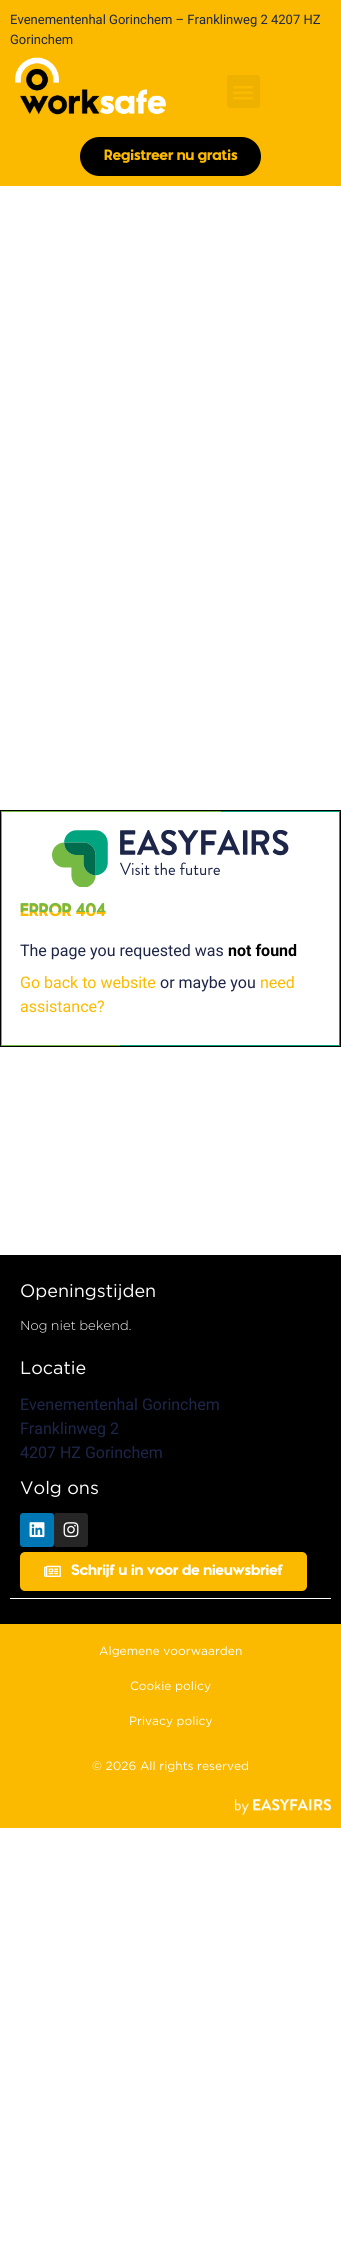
import math
import cairo


def round_path(ctx, x, y, w, h, r):
	ctx.new_sub_path()
	for i, (u, v) in enumerate([(x + w - r, y + h - r), (x + r, y + h - r), (x + r, y + r), (x + w - r, y + r)]):
		ctx.arc(u, v, r, i * math.pi / 2, (i + 1) * math.pi / 2)
	ctx.close_path()

def paste(ctx, path, x, y, w, h):
	ctx.save()
	ctx.set_source_surface(cairo.ImageSurface.create_from_png(path), x, y)
	ctx.rectangle(x, y, w, h)
	ctx.fill()
	ctx.restore()

def draw(ctx):
	ctx.set_source_rgb(1, 1, 1)
	ctx.paint()
	ctx.set_source_rgb(0.984, 0.729, 0)
	ctx.rectangle(0, 0, 341, 186)
	ctx.fill()
	ctx.select_font_face('Roboto')
	ctx.set_font_size(13)
	ctx.set_source_rgb(0.114, 0.149, 0.286)
	ctx.move_to(10, 24)
	ctx.show_text('Evenementenhal Gorinchem – Franklinweg 2 4207 HZ')
	ctx.move_to(10, 44)
	ctx.show_text('Gorinchem')
	paste(ctx, 'media/1.png', 15, 57, 151, 58)
	ctx.set_source_rgb(0.933, 0.694, 0)
	round_path(ctx, 227, 75, 33, 33, 3)
	ctx.fill()
	paste(ctx, 'media/2.png', 233, 86, 20, 14)
	ctx.set_source_rgb(0, 0, 0)
	round_path(ctx, 80, 137, 181, 39, 19.5)
	ctx.fill()
	ctx.select_font_face('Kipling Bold', cairo.FONT_SLANT_NORMAL, cairo.FONT_WEIGHT_BOLD)
	ctx.set_font_size(15)
	ctx.set_source_rgb(0.984, 0.729, 0)
	ctx.move_to(104, 160)
	ctx.show_text('Registreer nu gratis')
	paste(ctx, 'media/3.png', 52, 830, 237, 57)
	ctx.rectangle(0.5, 810.5, 340, 236)
	ctx.set_source_rgb(0, 0, 0)
	ctx.set_line_width(1)
	ctx.stroke()
	ctx.set_source_rgb(0.463, 0.729, 0.263)
	ctx.new_path()
	ctx.move_to(2, 812)
	ctx.line_to(221, 812)
	ctx.line_to(221, 811)
	ctx.line_to(1, 811)
	ctx.line_to(1, 1046)
	ctx.line_to(120, 1046)
	ctx.line_to(120, 1045)
	ctx.line_to(2, 1045)
	ctx.close_path()
	ctx.fill()
	ctx.set_source_rgb(0, 0.647, 0.498)
	ctx.new_path()
	ctx.move_to(221, 811)
	ctx.line_to(221, 812)
	ctx.line_to(339, 812)
	ctx.line_to(339, 1045)
	ctx.line_to(120, 1045)
	ctx.line_to(120, 1046)
	ctx.line_to(340, 1046)
	ctx.line_to(340, 811)
	ctx.close_path()
	ctx.fill()
	ctx.set_font_size(17)
	ctx.set_source_rgb(0.984, 0.729, 0)
	ctx.move_to(20, 916)
	ctx.show_text('ERROR 404')
	ctx.save()
	ctx.new_path()
	ctx.move_to(20, 901.5)
	ctx.line_to(106.5, 901.5)
	ctx.line_to(106.5, 911.5)
	ctx.line_to(20, 911.5)
	ctx.close_path()
	ctx.clip()
	ctx.set_source_rgb(0.463, 0.729, 0.263)
	ctx.move_to(20, 915)
	ctx.show_text('ERROR 404')
	ctx.restore()
	ctx.select_font_face('Roboto')
	ctx.set_font_size(16)
	ctx.set_source_rgb(0.114, 0.149, 0.286)
	ctx.move_to(20, 956)
	ctx.show_text('The page you requested was')
	ctx.select_font_face('Roboto', cairo.FONT_SLANT_NORMAL, cairo.FONT_WEIGHT_BOLD)
	ctx.set_source_rgb(0, 0, 0)
	ctx.move_to(228, 956)
	ctx.show_text('not found')
	ctx.select_font_face('Roboto')
	ctx.set_source_rgb(0.984, 0.729, 0)
	ctx.move_to(20, 988)
	ctx.show_text('Go back to website')
	ctx.set_source_rgb(0.114, 0.149, 0.286)
	ctx.move_to(160, 988)
	ctx.show_text('or maybe you')
	ctx.set_source_rgb(0.984, 0.729, 0)
	ctx.move_to(260, 988)
	ctx.show_text('need')
	ctx.move_to(20, 1012)
	ctx.show_text('assistance?')
	ctx.set_source_rgb(0, 0, 0)
	ctx.rectangle(0, 1255, 341, 369)
	ctx.fill()
	ctx.select_font_face('Gotham')
	ctx.set_font_size(18)
	ctx.set_source_rgb(1, 1, 1)
	ctx.move_to(20, 1297)
	ctx.show_text('Openingstijden')
	ctx.select_font_face('Montserrat Light')
	ctx.set_font_size(13)
	ctx.move_to(20, 1330)
	ctx.show_text('Nog niet bekend.')
	ctx.select_font_face('Gotham')
	ctx.set_font_size(18)
	ctx.move_to(20, 1374)
	ctx.show_text('Locatie')
	ctx.select_font_face('Roboto')
	ctx.set_font_size(16)
	ctx.set_source_rgb(0.114, 0.149, 0.286)
	for x, y, s in [
		(20, 1410, 'Evenementenhal Gorinchem'),
		(20, 1434, 'Franklinweg 2'),
		(20, 1458, '4207 HZ Gorinchem'),
	]:
		ctx.move_to(x, y)
		ctx.show_text(s)
	ctx.select_font_face('Gotham')
	ctx.set_font_size(18)
	ctx.set_source_rgb(1, 1, 1)
	ctx.move_to(20, 1494)
	ctx.show_text('Volg ons')
	ctx.set_source_rgb(0, 0.467, 0.71)
	round_path(ctx, 20, 1513, 34, 34, 3)
	ctx.fill()
	paste(ctx, 'media/4.png', 29, 1522, 16, 16)
	ctx.set_source_rgb(0.149, 0.149, 0.149)
	round_path(ctx, 54, 1513, 34, 34, 3)
	ctx.fill()
	paste(ctx, 'media/5.png', 63, 1522, 16, 16)
	ctx.set_source_rgb(0.984, 0.729, 0)
	round_path(ctx, 20, 1552, 287, 39, 5)
	ctx.fill()
	paste(ctx, 'media/6.png', 44, 1565, 17, 12)
	ctx.select_font_face('Kipling Bold', cairo.FONT_SLANT_NORMAL, cairo.FONT_WEIGHT_BOLD)
	ctx.set_font_size(15)
	ctx.set_source_rgb(1, 1, 1)
	ctx.move_to(71, 1575)
	ctx.show_text('Schrijf u in voor de nieuwsbrief')
	ctx.rectangle(10, 1598, 321, 1)
	ctx.fill()
	ctx.set_source_rgb(0.984, 0.729, 0)
	ctx.rectangle(0, 1624, 341, 204)
	ctx.fill()
	ctx.select_font_face('Gotham')
	ctx.set_font_size(12)
	ctx.set_source_rgb(1, 1, 1)
	for x, y, s in [
		(99, 1655, 'Algemene voorwaarden'),
		(130, 1690, 'Cookie policy'),
		(129, 1725, 'Privacy policy'),
		(92, 1770, '© 2026 All rights reserved'),
	]:
		ctx.move_to(x, y)
		ctx.show_text(s)
	paste(ctx, 'media/7.png', 235, 1799, 96, 16)


surface = cairo.ImageSurface(cairo.FORMAT_RGB24, 341, 2244)
ctx = cairo.Context(surface)
options = cairo.FontOptions()
options.set_hint_metrics(cairo.HINT_METRICS_OFF)
options.set_hint_style(cairo.HINT_STYLE_NONE)
ctx.set_font_options(options)
ctx.set_miter_limit(4)
draw(ctx)
surface.write_to_png('image.png')
